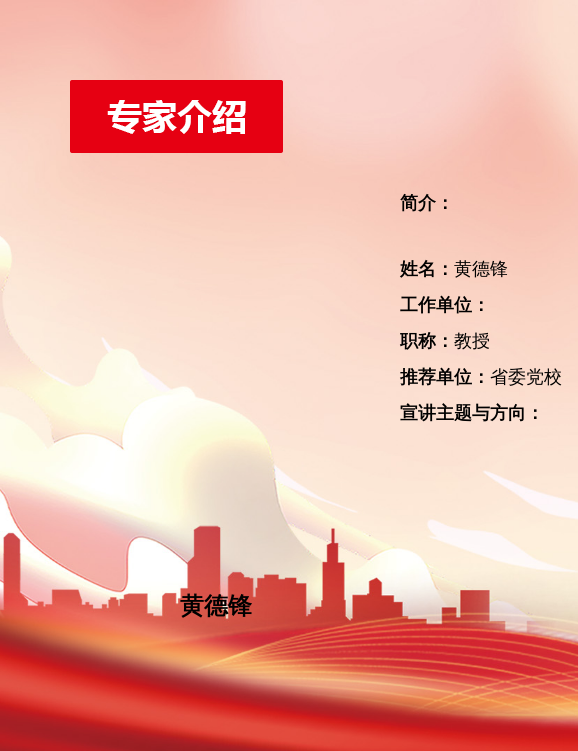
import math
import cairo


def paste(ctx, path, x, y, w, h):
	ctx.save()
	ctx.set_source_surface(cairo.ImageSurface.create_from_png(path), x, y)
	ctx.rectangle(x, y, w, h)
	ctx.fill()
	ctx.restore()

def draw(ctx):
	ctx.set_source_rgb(1, 1, 1)
	ctx.paint()
	paste(ctx, 'media/1.png', 0, 0, 578, 751)
	paste(ctx, 'media/2.png', 70, 80, 213, 73)
	ctx.select_font_face('WenQuanYi Zen Hei', cairo.FONT_SLANT_NORMAL, cairo.FONT_WEIGHT_BOLD)
	ctx.set_font_size(18)
	ctx.set_source_rgb(0, 0, 0)
	ctx.move_to(400, 209)
	ctx.show_text('简介：')
	ctx.move_to(400, 275)
	ctx.show_text('姓名：')
	ctx.select_font_face('WenQuanYi Zen Hei Medium')
	ctx.move_to(454, 275)
	ctx.show_text('黄德锋')
	ctx.select_font_face('WenQuanYi Zen Hei', cairo.FONT_SLANT_NORMAL, cairo.FONT_WEIGHT_BOLD)
	ctx.move_to(400, 311)
	ctx.show_text('工作单位：')
	ctx.move_to(400, 347)
	ctx.show_text('职称：')
	ctx.select_font_face('WenQuanYi Zen Hei Medium')
	ctx.move_to(454, 347)
	ctx.show_text('教授')
	ctx.select_font_face('WenQuanYi Zen Hei', cairo.FONT_SLANT_NORMAL, cairo.FONT_WEIGHT_BOLD)
	ctx.move_to(400, 383)
	ctx.show_text('推荐单位：')
	ctx.select_font_face('WenQuanYi Zen Hei Medium')
	ctx.move_to(490, 383)
	ctx.show_text('省委党校')
	ctx.select_font_face('WenQuanYi Zen Hei', cairo.FONT_SLANT_NORMAL, cairo.FONT_WEIGHT_BOLD)
	ctx.move_to(400, 419)
	ctx.show_text('宣讲主题与方向：')
	ctx.set_font_size(24)
	ctx.move_to(180, 614)
	ctx.show_text('黄德锋')


surface = cairo.ImageSurface(cairo.FORMAT_RGB24, 578, 751)
ctx = cairo.Context(surface)
options = cairo.FontOptions()
options.set_hint_metrics(cairo.HINT_METRICS_OFF)
options.set_hint_style(cairo.HINT_STYLE_NONE)
ctx.set_font_options(options)
ctx.set_miter_limit(4)
draw(ctx)
surface.write_to_png('image.png')
